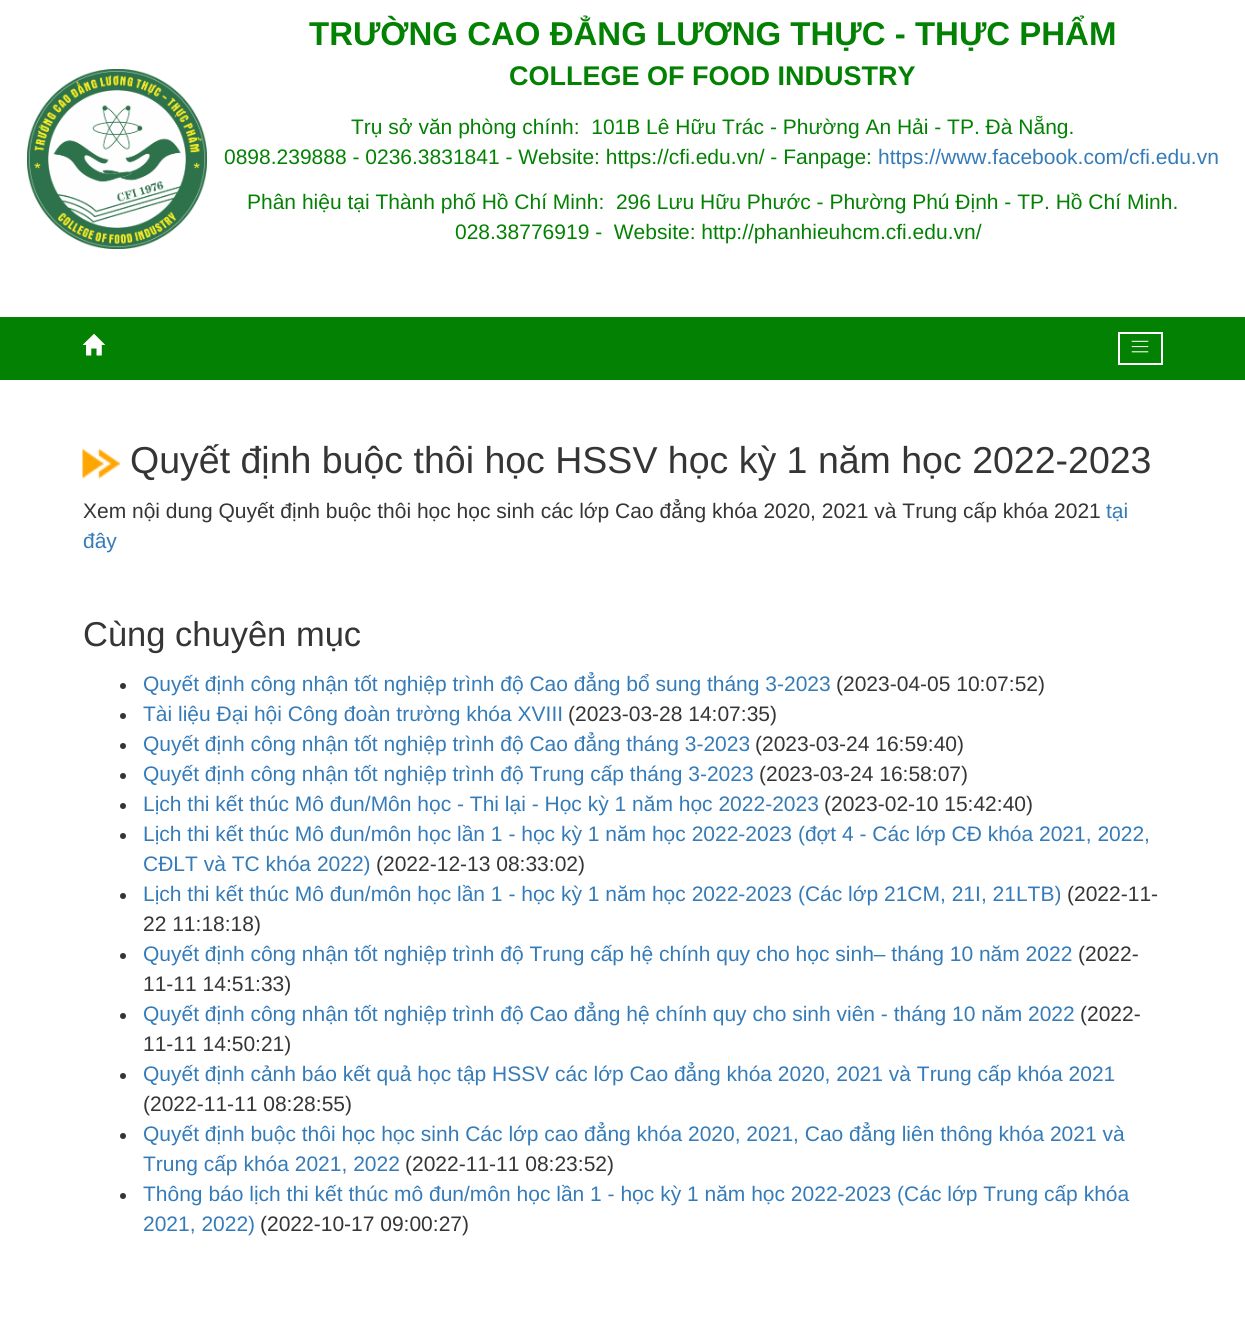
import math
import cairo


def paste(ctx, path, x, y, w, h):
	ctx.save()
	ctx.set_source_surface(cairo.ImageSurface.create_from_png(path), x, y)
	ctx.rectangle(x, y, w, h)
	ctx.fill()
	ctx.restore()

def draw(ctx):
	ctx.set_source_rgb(1, 1, 1)
	ctx.paint()
	paste(ctx, 'media/1.png', 27, 69, 180, 180)
	ctx.select_font_face('Liberation Sans', cairo.FONT_SLANT_NORMAL, cairo.FONT_WEIGHT_BOLD)
	ctx.set_font_size(33)
	ctx.set_source_rgb(0.012, 0.506, 0.012)
	ctx.move_to(309, 45)
	ctx.show_text('TRƯỜNG CAO ĐẲNG LƯƠNG THỰC - THỰC PHẨM')
	ctx.set_font_size(27)
	ctx.move_to(509, 85)
	ctx.show_text('COLLEGE OF FOOD INDUSTRY')
	ctx.select_font_face('Liberation Sans')
	ctx.set_font_size(21)
	ctx.move_to(351, 134)
	ctx.show_text('Trụ sở văn phòng chính:  101B Lê Hữu Trác - Phường An Hải - TP. Đà Nẵng.')
	ctx.move_to(224, 164)
	ctx.show_text('0898.239888 - 0236.3831841 - Website: https://cfi.edu.vn/ - Fanpage:')
	ctx.set_source_rgb(0.208, 0.482, 0.722)
	ctx.move_to(878, 164)
	ctx.show_text('https://www.facebook.com/cfi.edu.vn')
	ctx.set_source_rgb(0.012, 0.506, 0.012)
	ctx.move_to(247, 209)
	ctx.show_text('Phân hiệu tại Thành phố Hồ Chí Minh:  296 Lưu Hữu Phước - Phường Phú Định - TP. Hồ Chí Minh.')
	ctx.move_to(455, 239)
	ctx.show_text('028.38776919 -  Website: http://phanhieuhcm.cfi.edu.vn/')
	ctx.rectangle(0, 317, 1245, 63)
	ctx.fill()
	paste(ctx, 'media/2.png', 82, 334, 23, 22)
	ctx.rectangle(1119, 333, 43, 31)
	ctx.set_source_rgb(1, 1, 1)
	ctx.stroke()
	paste(ctx, 'media/3.png', 1131, 340, 18, 13)
	paste(ctx, 'media/4.png', 82, 448, 38, 31)
	ctx.set_font_size(37.5)
	ctx.set_source_rgb(0.208, 0.208, 0.208)
	ctx.move_to(130, 473)
	ctx.show_text('Quyết định buộc thôi học HSSV học kỳ 1 năm học 2022-2023')
	ctx.set_font_size(21)
	ctx.move_to(83, 518)
	ctx.show_text('Xem nội dung Quyết định buộc thôi học học sinh các lớp Cao đẳng khóa 2020, 2021 và Trung cấp khóa 2021')
	ctx.set_source_rgb(0.208, 0.482, 0.722)
	ctx.move_to(1106, 518)
	ctx.show_text('tại')
	ctx.move_to(83, 548)
	ctx.show_text('đây')
	ctx.set_font_size(34.5)
	ctx.set_source_rgb(0.208, 0.208, 0.208)
	ctx.move_to(83, 646)
	ctx.show_text('Cùng chuyên mục')
	ctx.new_path()
	ctx.arc(123, 686, 3, 0, 2 * math.pi)
	ctx.fill()
	ctx.set_font_size(21)
	ctx.set_source_rgb(0.208, 0.482, 0.722)
	ctx.move_to(143, 691)
	ctx.show_text('Quyết định công nhận tốt nghiệp trình độ Cao đẳng bổ sung tháng 3-2023')
	ctx.set_source_rgb(0.208, 0.208, 0.208)
	ctx.move_to(836, 691)
	ctx.show_text('(2023-04-05 10:07:52)')
	ctx.new_path()
	ctx.arc(123, 716, 3, 0, 2 * math.pi)
	ctx.fill()
	ctx.set_source_rgb(0.208, 0.482, 0.722)
	ctx.move_to(143, 721)
	ctx.show_text('Tài liệu Đại hội Công đoàn trường khóa XVIII')
	ctx.set_source_rgb(0.208, 0.208, 0.208)
	ctx.move_to(568, 721)
	ctx.show_text('(2023-03-28 14:07:35)')
	ctx.new_path()
	ctx.arc(123, 746, 3, 0, 2 * math.pi)
	ctx.fill()
	ctx.set_source_rgb(0.208, 0.482, 0.722)
	ctx.move_to(143, 751)
	ctx.show_text('Quyết định công nhận tốt nghiệp trình độ Cao đẳng tháng 3-2023')
	ctx.set_source_rgb(0.208, 0.208, 0.208)
	ctx.move_to(755, 751)
	ctx.show_text('(2023-03-24 16:59:40)')
	ctx.new_path()
	ctx.arc(123, 776, 3, 0, 2 * math.pi)
	ctx.fill()
	ctx.set_source_rgb(0.208, 0.482, 0.722)
	ctx.move_to(143, 781)
	ctx.show_text('Quyết định công nhận tốt nghiệp trình độ Trung cấp tháng 3-2023')
	ctx.set_source_rgb(0.208, 0.208, 0.208)
	ctx.move_to(759, 781)
	ctx.show_text('(2023-03-24 16:58:07)')
	ctx.new_path()
	ctx.arc(123, 806, 3, 0, 2 * math.pi)
	ctx.fill()
	ctx.set_source_rgb(0.208, 0.482, 0.722)
	ctx.move_to(143, 811)
	ctx.show_text('Lịch thi kết thúc Mô đun/Môn học - Thi lại - Học kỳ 1 năm học 2022-2023')
	ctx.set_source_rgb(0.208, 0.208, 0.208)
	ctx.move_to(824, 811)
	ctx.show_text('(2023-02-10 15:42:40)')
	ctx.new_path()
	ctx.arc(123, 836, 3, 0, 2 * math.pi)
	ctx.fill()
	ctx.set_source_rgb(0.208, 0.482, 0.722)
	ctx.move_to(143, 841)
	ctx.show_text('Lịch thi kết thúc Mô đun/môn học lần 1 - học kỳ 1 năm học 2022-2023 (đợt 4 - Các lớp CĐ khóa 2021, 2022,')
	ctx.move_to(143, 871)
	ctx.show_text('CĐLT và TC khóa 2022)')
	ctx.set_source_rgb(0.208, 0.208, 0.208)
	ctx.move_to(376, 871)
	ctx.show_text('(2022-12-13 08:33:02)')
	ctx.new_path()
	ctx.arc(123, 896, 3, 0, 2 * math.pi)
	ctx.fill()
	ctx.set_source_rgb(0.208, 0.482, 0.722)
	ctx.move_to(143, 901)
	ctx.show_text('Lịch thi kết thúc Mô đun/môn học lần 1 - học kỳ 1 năm học 2022-2023 (Các lớp 21CM, 21I, 21LTB)')
	ctx.set_source_rgb(0.208, 0.208, 0.208)
	ctx.move_to(1067, 901)
	ctx.show_text('(2022-11-')
	ctx.move_to(143, 931)
	ctx.show_text('22 11:18:18)')
	ctx.new_path()
	ctx.arc(123, 956, 3, 0, 2 * math.pi)
	ctx.fill()
	ctx.set_source_rgb(0.208, 0.482, 0.722)
	ctx.move_to(143, 961)
	ctx.show_text('Quyết định công nhận tốt nghiệp trình độ Trung cấp hệ chính quy cho học sinh– tháng 10 năm 2022')
	ctx.set_source_rgb(0.208, 0.208, 0.208)
	ctx.move_to(1078, 961)
	ctx.show_text('(2022-')
	ctx.move_to(143, 991)
	ctx.show_text('11-11 14:51:33)')
	ctx.new_path()
	ctx.arc(123, 1016, 3, 0, 2 * math.pi)
	ctx.fill()
	ctx.set_source_rgb(0.208, 0.482, 0.722)
	ctx.move_to(143, 1021)
	ctx.show_text('Quyết định công nhận tốt nghiệp trình độ Cao đẳng hệ chính quy cho sinh viên - tháng 10 năm 2022')
	ctx.set_source_rgb(0.208, 0.208, 0.208)
	ctx.move_to(1080, 1021)
	ctx.show_text('(2022-')
	ctx.move_to(143, 1051)
	ctx.show_text('11-11 14:50:21)')
	ctx.new_path()
	ctx.arc(123, 1076, 3, 0, 2 * math.pi)
	ctx.fill()
	ctx.set_source_rgb(0.208, 0.482, 0.722)
	ctx.move_to(143, 1081)
	ctx.show_text('Quyết định cảnh báo kết quả học tập HSSV các lớp Cao đẳng khóa 2020, 2021 và Trung cấp khóa 2021')
	ctx.set_source_rgb(0.208, 0.208, 0.208)
	ctx.move_to(143, 1111)
	ctx.show_text('(2022-11-11 08:28:55)')
	ctx.new_path()
	ctx.arc(123, 1136, 3, 0, 2 * math.pi)
	ctx.fill()
	ctx.set_source_rgb(0.208, 0.482, 0.722)
	ctx.move_to(143, 1141)
	ctx.show_text('Quyết định buộc thôi học học sinh Các lớp cao đẳng khóa 2020, 2021, Cao đẳng liên thông khóa 2021 và')
	ctx.move_to(143, 1171)
	ctx.show_text('Trung cấp khóa 2021, 2022')
	ctx.set_source_rgb(0.208, 0.208, 0.208)
	ctx.move_to(405, 1171)
	ctx.show_text('(2022-11-11 08:23:52)')
	ctx.new_path()
	ctx.arc(123, 1196, 3, 0, 2 * math.pi)
	ctx.fill()
	ctx.set_source_rgb(0.208, 0.482, 0.722)
	ctx.move_to(143, 1201)
	ctx.show_text('Thông báo lịch thi kết thúc mô đun/môn học lần 1 - học kỳ 1 năm học 2022-2023 (Các lớp Trung cấp khóa')
	ctx.move_to(143, 1231)
	ctx.show_text('2021, 2022)')
	ctx.set_source_rgb(0.208, 0.208, 0.208)
	ctx.move_to(260, 1231)
	ctx.show_text('(2022-10-17 09:00:27)')


surface = cairo.ImageSurface(cairo.FORMAT_RGB24, 1245, 1334)
ctx = cairo.Context(surface)
options = cairo.FontOptions()
options.set_hint_metrics(cairo.HINT_METRICS_OFF)
options.set_hint_style(cairo.HINT_STYLE_NONE)
ctx.set_font_options(options)
ctx.set_miter_limit(4)
draw(ctx)
surface.write_to_png('image.png')
